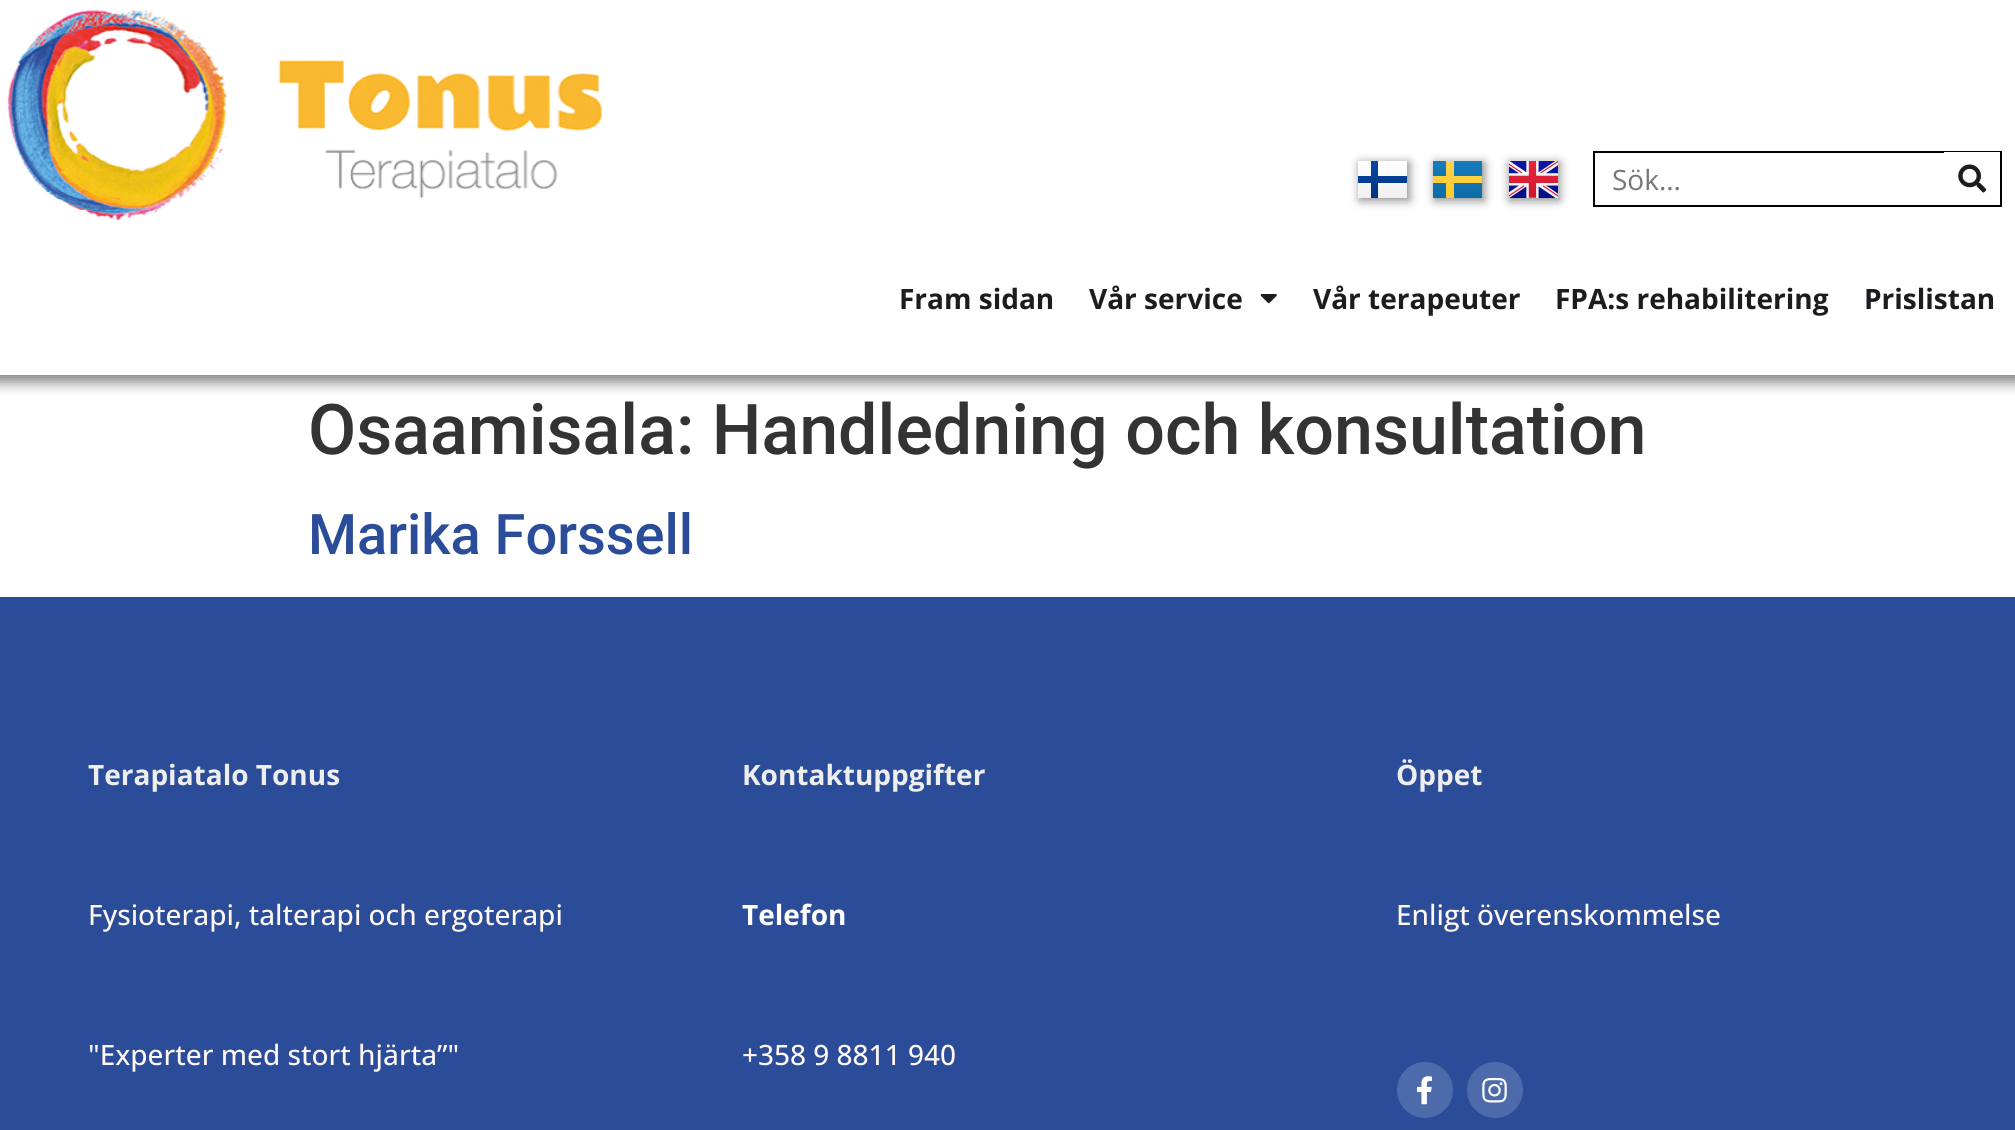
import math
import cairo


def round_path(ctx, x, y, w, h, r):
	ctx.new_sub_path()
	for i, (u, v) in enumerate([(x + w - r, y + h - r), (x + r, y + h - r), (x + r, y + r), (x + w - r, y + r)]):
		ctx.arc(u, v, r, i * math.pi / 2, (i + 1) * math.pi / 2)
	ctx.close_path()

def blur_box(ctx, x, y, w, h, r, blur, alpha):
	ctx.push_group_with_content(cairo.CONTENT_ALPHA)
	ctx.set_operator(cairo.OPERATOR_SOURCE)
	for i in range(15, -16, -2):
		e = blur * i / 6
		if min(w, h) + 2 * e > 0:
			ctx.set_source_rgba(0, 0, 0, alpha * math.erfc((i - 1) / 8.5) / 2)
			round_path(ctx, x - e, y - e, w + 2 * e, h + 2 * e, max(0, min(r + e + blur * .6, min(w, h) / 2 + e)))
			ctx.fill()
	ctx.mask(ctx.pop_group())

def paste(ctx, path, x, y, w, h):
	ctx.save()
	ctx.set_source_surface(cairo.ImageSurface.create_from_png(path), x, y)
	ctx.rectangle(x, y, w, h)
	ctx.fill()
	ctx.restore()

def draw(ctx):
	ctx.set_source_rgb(1, 1, 1)
	ctx.paint()
	ctx.set_source_rgb(0, 0, 0)
	blur_box(ctx, -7, -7, 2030, 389, 0, 7, 0.5)
	ctx.set_source_rgb(1, 1, 1)
	ctx.rectangle(0, 0, 2015, 375)
	ctx.fill()
	paste(ctx, 'media/1.png', 7, 9, 595, 212)
	ctx.set_source_rgb(0, 0, 0)
	blur_box(ctx, 1360, 163, 49, 37, 0, 5, 0.5)
	gradient = cairo.LinearGradient(1382, 161, 1382, 198)
	gradient.add_color_stop_rgba(0, 1, 1, 1, 1)
	gradient.add_color_stop_rgba(1, 0.941, 0.941, 0.941, 1)
	ctx.set_source(gradient)
	ctx.rectangle(1358, 161, 49, 37)
	ctx.fill()
	ctx.save()
	ctx.rectangle(1358, 161, 49, 37)
	ctx.clip()
	gradient = cairo.LinearGradient(1382, 161, 1382, 198)
	gradient.add_color_stop_rgba(0, 0.031, 0.282, 0.651, 1)
	gradient.add_color_stop_rgba(1, 0, 0.204, 0.502, 1)
	ctx.set_source(gradient)
	ctx.set_fill_rule(cairo.FILL_RULE_EVEN_ODD)
	ctx.new_path()
	ctx.move_to(1356, 183)
	ctx.line_to(1371, 183)
	ctx.line_to(1371, 198)
	ctx.line_to(1378, 198)
	ctx.line_to(1378, 183)
	ctx.line_to(1408, 183)
	ctx.line_to(1408, 176)
	ctx.line_to(1378, 176)
	ctx.line_to(1378, 161)
	ctx.line_to(1371, 161)
	ctx.line_to(1371, 176)
	ctx.line_to(1356, 176)
	ctx.close_path()
	ctx.fill()
	ctx.restore()
	ctx.set_source_rgb(0, 0, 0)
	blur_box(ctx, 1435, 163, 49, 37, 0, 5, 0.5)
	gradient = cairo.LinearGradient(1457, 161, 1457, 198)
	gradient.add_color_stop_rgba(0, 0.082, 0.486, 0.733, 1)
	gradient.add_color_stop_rgba(1, 0.055, 0.424, 0.647, 1)
	ctx.set_source(gradient)
	ctx.rectangle(1433, 161, 49, 37)
	ctx.fill()
	ctx.save()
	ctx.rectangle(1433, 161, 49, 37)
	ctx.clip()
	gradient = cairo.LinearGradient(1457, 161, 1457, 198)
	gradient.add_color_stop_rgba(0, 1, 0.827, 0.302, 1)
	gradient.add_color_stop_rgba(1, 0.996, 0.796, 0.184, 1)
	ctx.set_source(gradient)
	ctx.set_fill_rule(cairo.FILL_RULE_EVEN_ODD)
	ctx.new_path()
	ctx.move_to(1432, 183)
	ctx.line_to(1446, 183)
	ctx.line_to(1446, 198)
	ctx.line_to(1454, 198)
	ctx.line_to(1454, 183)
	ctx.line_to(1483, 183)
	ctx.line_to(1483, 176)
	ctx.line_to(1454, 176)
	ctx.line_to(1454, 161)
	ctx.line_to(1446, 161)
	ctx.line_to(1446, 176)
	ctx.line_to(1432, 176)
	ctx.close_path()
	ctx.fill()
	ctx.restore()
	ctx.set_source_rgb(0, 0, 0)
	blur_box(ctx, 1510, 163, 49, 37, 0, 5, 0.5)
	paste(ctx, 'media/2.png', 1509, 161, 49, 37)
	ctx.rectangle(1594, 152, 407, 54)
	ctx.set_source_rgb(0, 0, 0)
	ctx.stroke()
	ctx.select_font_face('Open Sans')
	ctx.set_font_size(28)
	ctx.set_source_rgb(0.463, 0.467, 0.475)
	ctx.move_to(1612, 190)
	ctx.show_text('Sök...')
	ctx.set_source_rgb(1, 1, 1)
	ctx.rectangle(1944, 152, 56, 1)
	ctx.fill()
	paste(ctx, 'media/3.png', 1958, 164, 29, 29)
	ctx.select_font_face('Open Sans', cairo.FONT_SLANT_NORMAL, cairo.FONT_WEIGHT_BOLD)
	ctx.set_source_rgb(0.102, 0.11, 0.125)
	ctx.move_to(899, 309)
	ctx.show_text('Fram sidan')
	ctx.move_to(1089, 309)
	ctx.show_text('Vår service')
	paste(ctx, 'media/4.png', 1260, 294, 17, 10)
	for x, y, s in [
		(1313, 309, 'Vår terapeuter'),
		(1555, 309, 'FPA:s rehabilitering'),
		(1864, 309, 'Prislistan'),
	]:
		ctx.move_to(x, y)
		ctx.show_text(s)
	ctx.select_font_face('Roboto Medium')
	ctx.set_font_size(70)
	ctx.set_source_rgb(0.2, 0.2, 0.2)
	ctx.move_to(308, 454)
	ctx.show_text('Osaamisala: Handledning och konsultation')
	ctx.set_font_size(56)
	ctx.set_source_rgb(0.165, 0.298, 0.6)
	ctx.move_to(308, 554)
	ctx.show_text('Marika Forssell')
	ctx.rectangle(0, 597, 2015, 533)
	ctx.fill()
	ctx.select_font_face('Open Sans', cairo.FONT_SLANT_NORMAL, cairo.FONT_WEIGHT_BOLD)
	ctx.set_font_size(28)
	ctx.set_source_rgb(0.933, 0.933, 0.933)
	ctx.move_to(88, 785)
	ctx.show_text('Terapiatalo Tonus')
	ctx.select_font_face('Open Sans Medium')
	ctx.set_source_rgb(0.996, 0.965, 0.957)
	ctx.move_to(88, 925)
	ctx.show_text('Fysioterapi, talterapi och ergoterapi')
	ctx.move_to(88, 1065)
	ctx.show_text('"Experter med stort hjärta”"')
	ctx.select_font_face('Open Sans', cairo.FONT_SLANT_NORMAL, cairo.FONT_WEIGHT_BOLD)
	ctx.set_source_rgb(0.933, 0.933, 0.933)
	ctx.move_to(742, 785)
	ctx.show_text('Kontaktuppgifter')
	ctx.set_source_rgb(1, 1, 1)
	ctx.move_to(742, 925)
	ctx.show_text('Telefon')
	ctx.select_font_face('Open Sans Medium')
	ctx.set_source_rgb(0.996, 0.965, 0.957)
	ctx.move_to(742, 1065)
	ctx.show_text('+358 9 8811 940')
	ctx.select_font_face('Open Sans', cairo.FONT_SLANT_NORMAL, cairo.FONT_WEIGHT_BOLD)
	ctx.set_source_rgb(0.933, 0.933, 0.933)
	ctx.move_to(1396, 785)
	ctx.show_text('Öppet')
	ctx.select_font_face('Open Sans Medium')
	ctx.set_source_rgb(0.996, 0.965, 0.957)
	ctx.move_to(1396, 925)
	ctx.show_text('Enligt överenskommelse')
	ctx.set_source_rgb(0.302, 0.416, 0.667)
	ctx.new_path()
	ctx.arc(1425, 1090, 28, 0, 2 * math.pi)
	ctx.fill()
	paste(ctx, 'media/5.png', 1417, 1076, 15, 29)
	ctx.arc(1495, 1090, 28, 0, 2 * math.pi)
	ctx.fill()
	paste(ctx, 'media/6.png', 1482, 1077, 25, 26)


surface = cairo.ImageSurface(cairo.FORMAT_RGB24, 2015, 1130)
ctx = cairo.Context(surface)
options = cairo.FontOptions()
options.set_hint_metrics(cairo.HINT_METRICS_OFF)
options.set_hint_style(cairo.HINT_STYLE_NONE)
ctx.set_font_options(options)
ctx.set_miter_limit(4)
draw(ctx)
surface.write_to_png('image.png')
